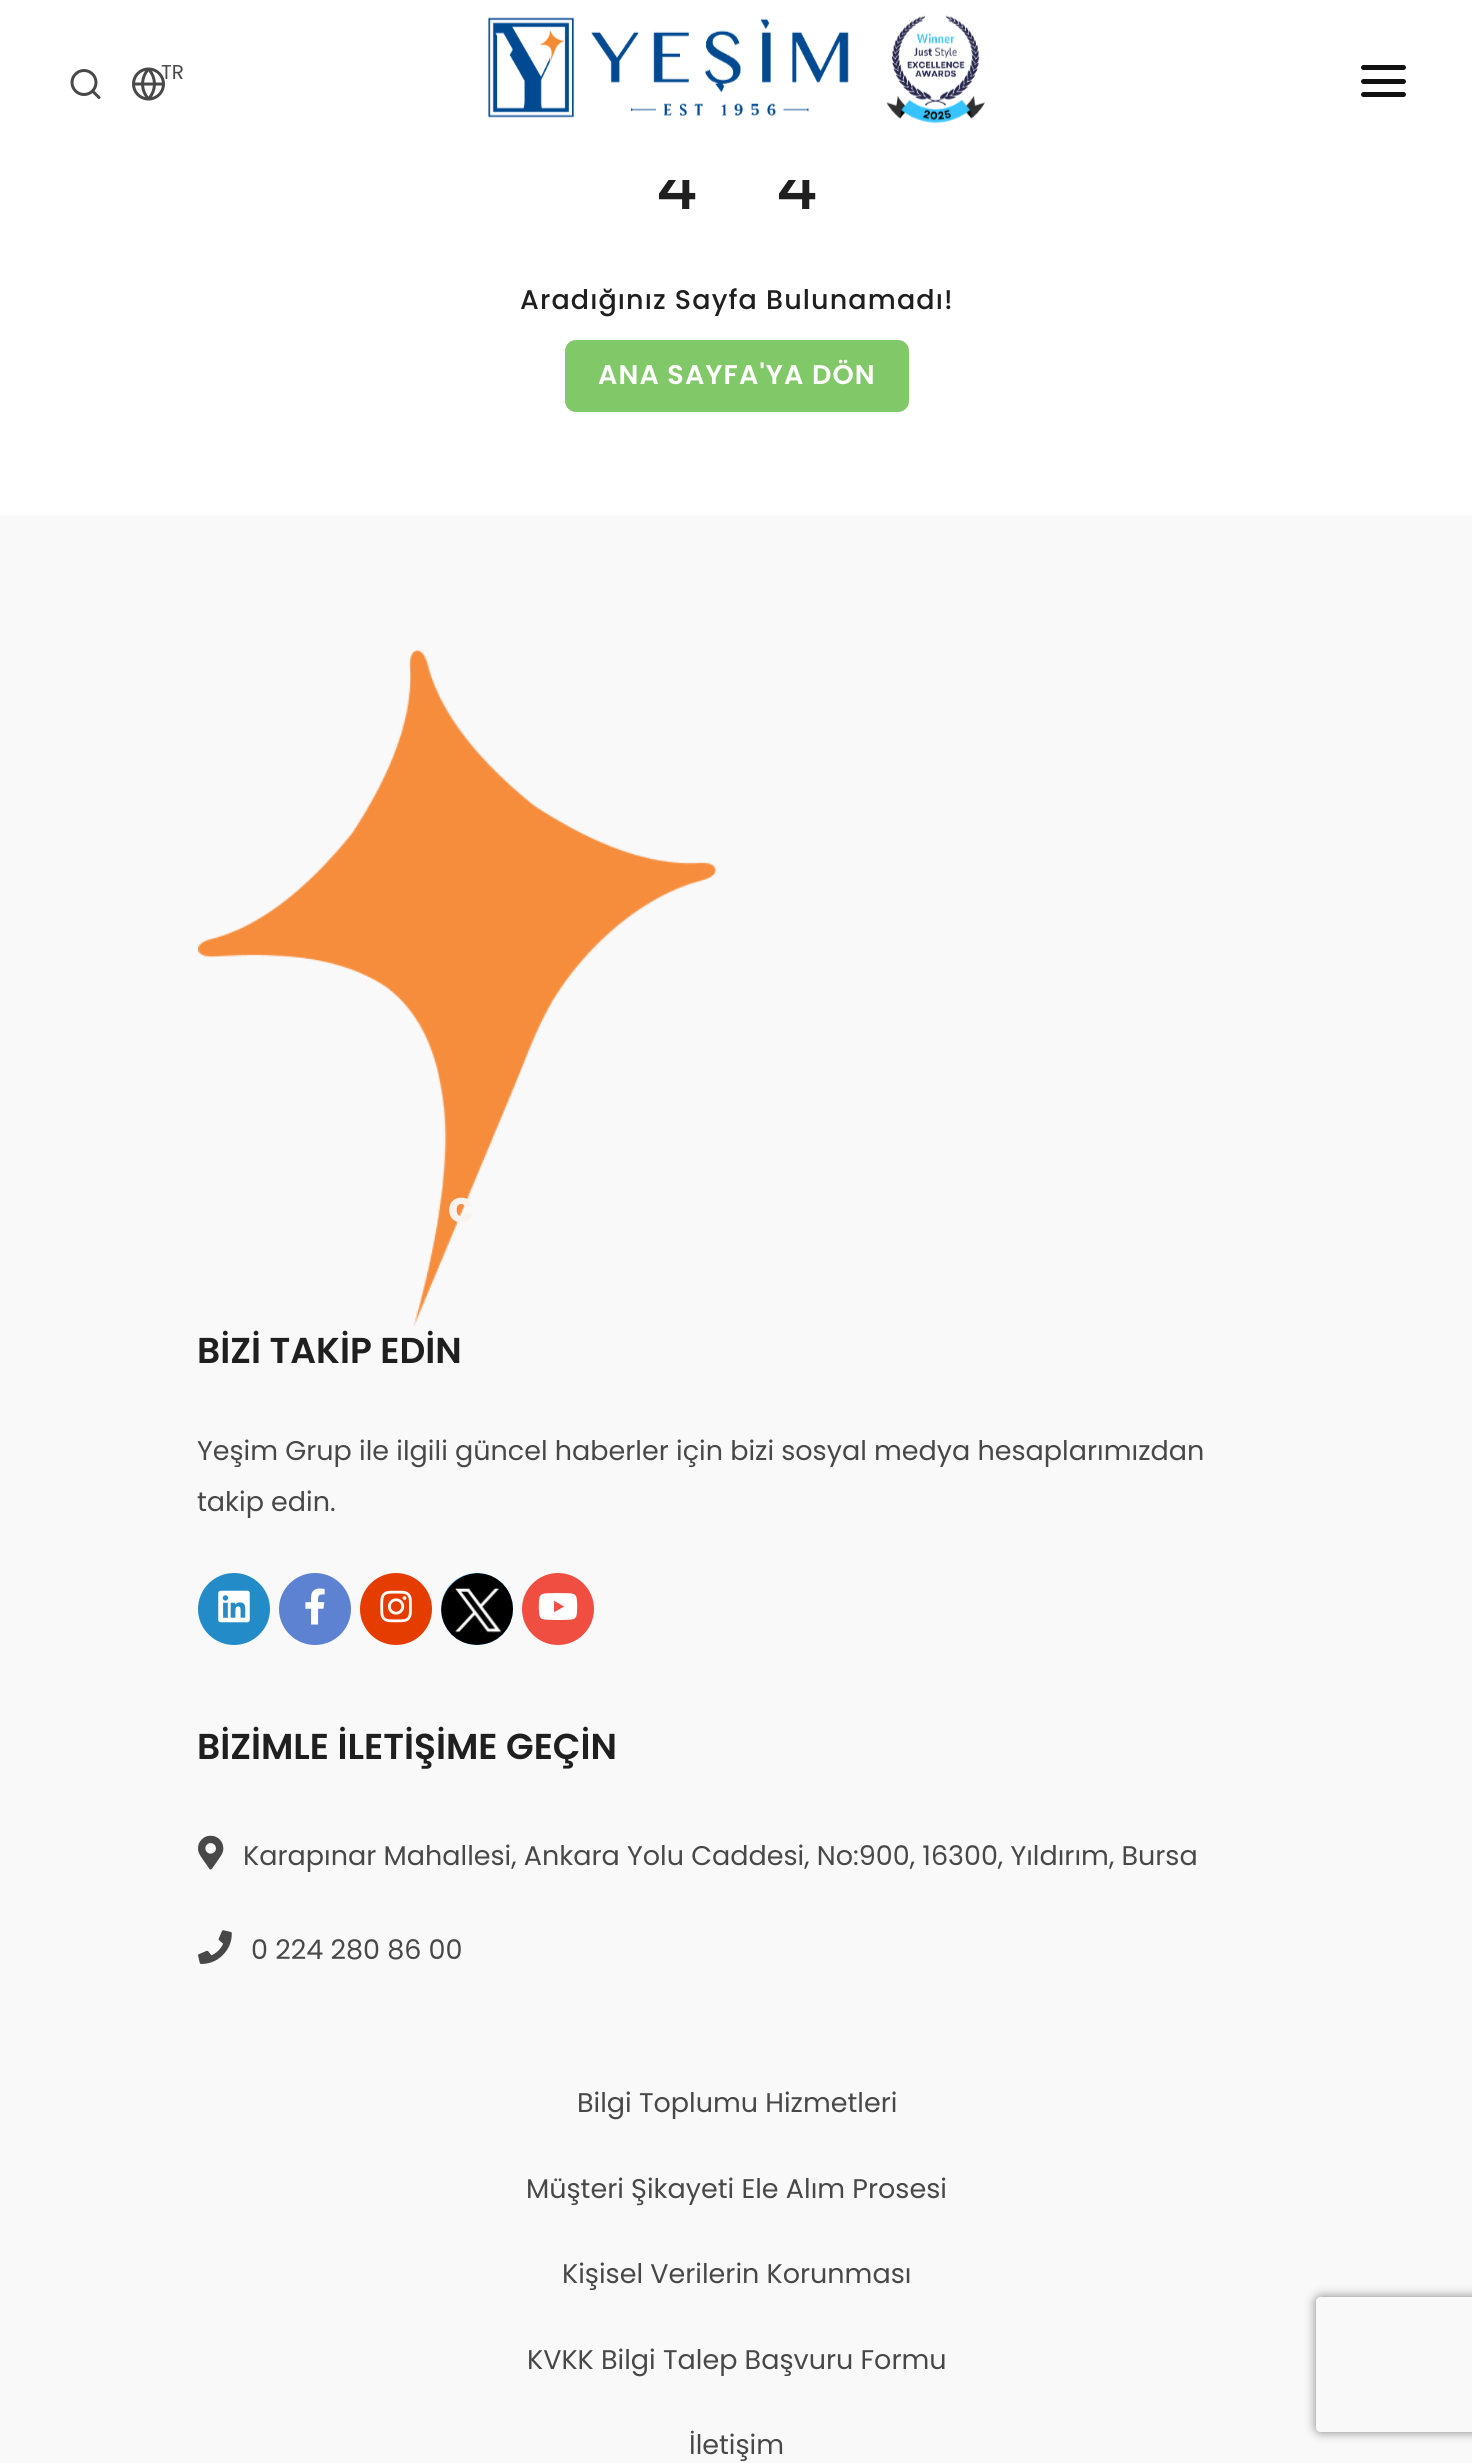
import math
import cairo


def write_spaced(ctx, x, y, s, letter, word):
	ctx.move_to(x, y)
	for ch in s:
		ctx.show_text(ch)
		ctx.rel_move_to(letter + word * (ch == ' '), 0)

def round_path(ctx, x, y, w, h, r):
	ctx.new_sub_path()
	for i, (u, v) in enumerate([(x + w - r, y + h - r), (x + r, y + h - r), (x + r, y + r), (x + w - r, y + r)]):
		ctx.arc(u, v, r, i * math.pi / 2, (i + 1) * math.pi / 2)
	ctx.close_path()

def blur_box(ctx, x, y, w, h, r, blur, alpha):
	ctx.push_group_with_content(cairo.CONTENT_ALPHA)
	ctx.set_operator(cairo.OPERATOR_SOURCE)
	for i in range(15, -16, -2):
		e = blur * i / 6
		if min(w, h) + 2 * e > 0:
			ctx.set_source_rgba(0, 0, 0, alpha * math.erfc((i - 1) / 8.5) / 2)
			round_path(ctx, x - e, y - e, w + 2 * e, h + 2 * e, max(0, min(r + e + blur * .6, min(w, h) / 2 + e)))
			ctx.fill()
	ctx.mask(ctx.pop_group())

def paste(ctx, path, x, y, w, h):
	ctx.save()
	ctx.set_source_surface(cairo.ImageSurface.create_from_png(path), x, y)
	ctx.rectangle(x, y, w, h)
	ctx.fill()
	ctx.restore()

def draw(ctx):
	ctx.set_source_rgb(0.973, 0.976, 0.98)
	ctx.paint()
	ctx.set_source_rgb(1, 1, 1)
	ctx.rectangle(0, 180, 1472, 335)
	ctx.fill()
	ctx.select_font_face('Poppins Medium')
	ctx.set_font_size(64)
	ctx.set_source_rgb(0.122, 0.122, 0.122)
	write_spaced(ctx, 656, 209, '4', 1.1, 0)
	write_spaced(ctx, 776, 209, '4', 1.1, 0)
	ctx.set_source_rgb(1, 1, 1)
	ctx.rectangle(0, 0, 1472, 180)
	ctx.fill()
	paste(ctx, 'media/1.png', 70, 69, 31, 30)
	paste(ctx, 'media/2.png', 132, 67, 33, 34)
	ctx.select_font_face('Poppins')
	ctx.set_font_size(20)
	ctx.set_source_rgb(0.282, 0.282, 0.282)
	ctx.move_to(161, 79)
	ctx.show_text('TR')
	paste(ctx, 'media/3.png', 488, 17, 361, 101)
	paste(ctx, 'media/4.png', 886, 15, 100, 109)
	ctx.set_source_rgb(0.067, 0.067, 0.067)
	round_path(ctx, 1361, 79, 45, 5, 2.5)
	ctx.fill()
	round_path(ctx, 1361, 65, 45, 5, 2.5)
	ctx.fill()
	round_path(ctx, 1361, 92, 45, 5, 2.5)
	ctx.fill()
	paste(ctx, 'media/5.png', 198, 650, 518, 676)
	ctx.select_font_face('Poppins', cairo.FONT_SLANT_NORMAL, cairo.FONT_WEIGHT_BOLD)
	ctx.set_font_size(43)
	ctx.set_source_rgb(0.973, 0.953, 0.937)
	ctx.move_to(448, 1222)
	ctx.show_text('c')
	ctx.select_font_face('Poppins Medium')
	ctx.set_font_size(27)
	ctx.set_source_rgb(0.122, 0.122, 0.122)
	write_spaced(ctx, 520, 309, 'Aradığınız Sayfa Bulunamadı!', 1.1, 0)
	ctx.set_source_rgb(0.506, 0.784, 0.408)
	round_path(ctx, 566, 341, 342, 70, 10)
	ctx.fill_preserve()
	ctx.stroke()
	ctx.select_font_face('Poppins SemiBold')
	ctx.set_source_rgb(1, 1, 1)
	write_spaced(ctx, 598, 384, 'ANA SAYFA\'YA DÖN', 1.1, 0)
	ctx.set_font_size(36)
	ctx.set_source_rgb(0.122, 0.122, 0.122)
	ctx.move_to(197, 1363)
	ctx.show_text('BİZİ TAKİP EDİN')
	ctx.select_font_face('Poppins')
	ctx.set_font_size(27)
	ctx.set_source_rgb(0.282, 0.282, 0.282)
	ctx.move_to(197, 1460)
	ctx.show_text('Yeşim Grup ile ilgili güncel haberler için bizi sosyal medya hesaplarımızdan')
	ctx.move_to(197, 1511)
	ctx.show_text('takip edin.')
	ctx.set_source_rgb(0.137, 0.549, 0.784)
	ctx.new_path()
	ctx.arc(234, 1609, 36, 0, 2 * math.pi)
	ctx.fill()
	paste(ctx, 'media/6.png', 218, 1590, 32, 33)
	ctx.set_source_rgb(0.365, 0.51, 0.82)
	ctx.arc(315, 1609, 36, 0, 2 * math.pi)
	ctx.fill()
	paste(ctx, 'media/7.png', 305, 1588, 20, 37)
	ctx.set_source_rgb(0.898, 0.239, 0)
	ctx.arc(396, 1609, 36, 0, 2 * math.pi)
	ctx.fill()
	paste(ctx, 'media/8.png', 380, 1590, 32, 33)
	ctx.set_source_rgb(0.251, 0.749, 0.961)
	ctx.arc(477, 1609, 36, 0, 2 * math.pi)
	ctx.fill()
	paste(ctx, 'media/9.png', 441, 1573, 72, 72)
	ctx.set_source_rgb(0.937, 0.306, 0.255)
	ctx.arc(558, 1609, 36, 0, 2 * math.pi)
	ctx.fill()
	paste(ctx, 'media/10.png', 538, 1593, 40, 27)
	ctx.select_font_face('Poppins SemiBold')
	ctx.set_font_size(36)
	ctx.set_source_rgb(0.122, 0.122, 0.122)
	ctx.move_to(197, 1759)
	ctx.show_text('BİZİMLE İLETİŞİME GEÇİN')
	paste(ctx, 'media/11.png', 198, 1835, 26, 35)
	ctx.select_font_face('Poppins')
	ctx.set_font_size(27)
	ctx.set_source_rgb(0.282, 0.282, 0.282)
	ctx.move_to(243, 1865)
	ctx.show_text('Karapınar Mahallesi, Ankara Yolu Caddesi, No:900, 16300, Yıldırım, Bursa')
	paste(ctx, 'media/12.png', 198, 1930, 34, 34)
	for x, y, s in [
		(251, 1959, '0 224 280 86 00'),
		(577, 2112, 'Bilgi Toplumu Hizmetleri'),
		(526, 2198, 'Müşteri Şikayeti Ele Alım Prosesi'),
		(562, 2283, 'Kişisel Verilerin Korunması'),
		(527, 2369, 'KVKK Bilgi Talep Başvuru Formu'),
		(689, 2454, 'İletişim'),
	]:
		ctx.move_to(x, y)
		ctx.show_text(s)
	ctx.save()
	ctx.set_fill_rule(cairo.FILL_RULE_EVEN_ODD)
	ctx.new_path()
	ctx.move_to(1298, 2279)
	ctx.line_to(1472, 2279)
	ctx.line_to(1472, 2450)
	ctx.line_to(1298, 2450)
	ctx.close_path()
	ctx.move_to(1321, 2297)
	ctx.line_to(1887, 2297)
	ctx.curve_to(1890, 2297, 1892, 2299, 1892, 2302)
	ctx.line_to(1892, 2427)
	ctx.curve_to(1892, 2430, 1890, 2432, 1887, 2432)
	ctx.line_to(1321, 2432)
	ctx.curve_to(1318, 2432, 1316, 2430, 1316, 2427)
	ctx.line_to(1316, 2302)
	ctx.curve_to(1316, 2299, 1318, 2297, 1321, 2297)
	ctx.close_path()
	ctx.clip()
	ctx.set_source_rgb(0.502, 0.502, 0.502)
	blur_box(ctx, 1316, 2297, 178, 135, 5, 5.5, 1)
	ctx.restore()


surface = cairo.ImageSurface(cairo.FORMAT_RGB24, 1472, 2463)
ctx = cairo.Context(surface)
options = cairo.FontOptions()
options.set_hint_metrics(cairo.HINT_METRICS_OFF)
options.set_hint_style(cairo.HINT_STYLE_NONE)
ctx.set_font_options(options)
ctx.set_miter_limit(4)
draw(ctx)
surface.write_to_png('image.png')
